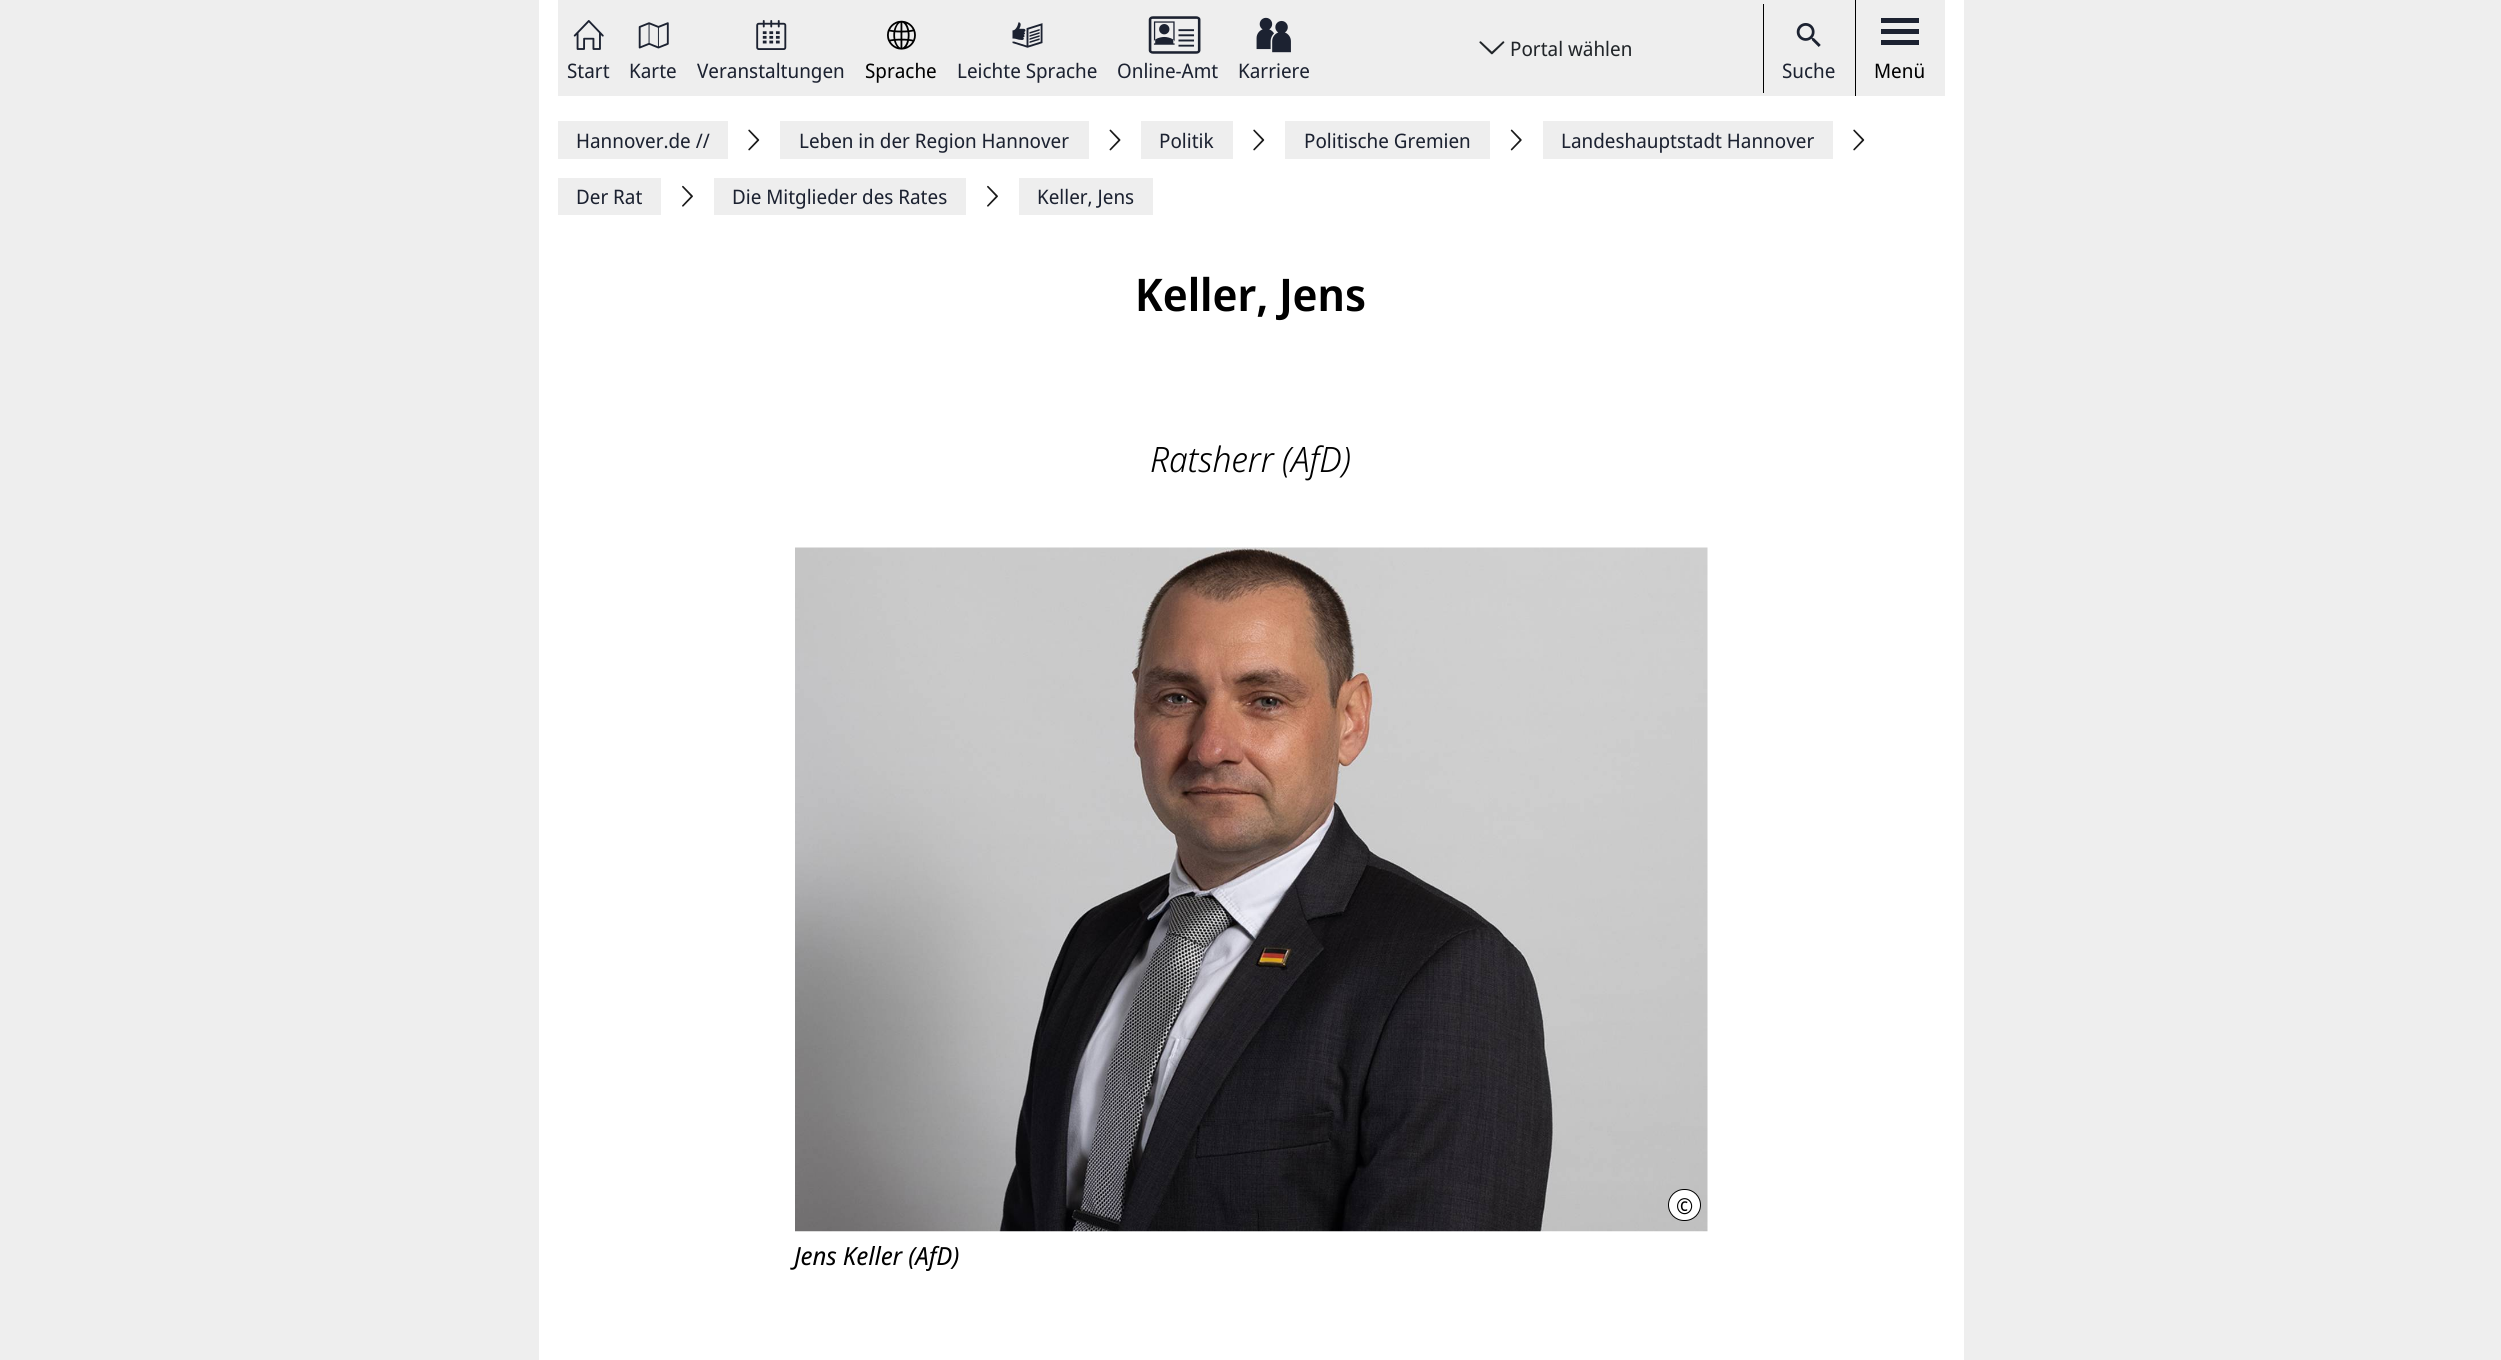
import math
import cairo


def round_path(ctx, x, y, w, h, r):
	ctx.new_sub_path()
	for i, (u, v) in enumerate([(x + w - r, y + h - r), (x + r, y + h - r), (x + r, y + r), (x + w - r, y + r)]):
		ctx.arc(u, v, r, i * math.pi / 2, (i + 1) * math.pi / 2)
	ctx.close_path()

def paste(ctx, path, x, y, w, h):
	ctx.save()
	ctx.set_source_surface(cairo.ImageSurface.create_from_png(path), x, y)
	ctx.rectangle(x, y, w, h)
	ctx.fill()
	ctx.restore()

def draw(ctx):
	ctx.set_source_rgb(0.933, 0.933, 0.933)
	ctx.paint()
	ctx.set_source_rgb(1, 1, 1)
	ctx.rectangle(539, 0, 1425, 1360)
	ctx.fill()
	ctx.set_source_rgb(0.933, 0.933, 0.933)
	ctx.rectangle(558, 0, 1387, 96)
	ctx.fill()
	paste(ctx, 'media/1.png', 1479, 41, 26, 14)
	ctx.select_font_face('Noto Sans Display')
	ctx.set_font_size(20)
	ctx.set_source_rgb(0.129, 0.145, 0.161)
	ctx.move_to(1510, 56)
	ctx.show_text('Portal wählen')
	paste(ctx, 'media/2.png', 573, 20, 31, 30)
	ctx.set_source_rgb(0.11, 0.133, 0.192)
	ctx.move_to(567, 78)
	ctx.show_text('Start')
	paste(ctx, 'media/3.png', 638, 22, 31, 27)
	ctx.move_to(629, 78)
	ctx.show_text('Karte')
	paste(ctx, 'media/4.png', 756, 20, 31, 30)
	ctx.move_to(697, 78)
	ctx.show_text('Veranstaltungen')
	paste(ctx, 'media/5.png', 887, 20, 29, 30)
	ctx.set_source_rgb(0, 0, 0)
	ctx.move_to(865, 78)
	ctx.show_text('Sprache')
	paste(ctx, 'media/6.png', 1012, 22, 31, 26)
	ctx.set_source_rgb(0.11, 0.133, 0.192)
	ctx.move_to(957, 78)
	ctx.show_text('Leichte Sprache')
	paste(ctx, 'media/7.png', 1148, 16, 53, 38)
	ctx.move_to(1117, 78)
	ctx.show_text('Online-Amt')
	paste(ctx, 'media/8.png', 1256, 17, 35, 36)
	ctx.move_to(1238, 78)
	ctx.show_text('Karriere')
	ctx.set_source_rgb(0, 0, 0)
	ctx.rectangle(1763, 4, 1, 89)
	ctx.fill()
	paste(ctx, 'media/9.png', 1796, 23, 25, 24)
	ctx.set_source_rgb(0.11, 0.133, 0.192)
	ctx.move_to(1782, 78)
	ctx.show_text('Suche')
	ctx.set_source_rgb(0, 0, 0)
	ctx.rectangle(1855, 0, 1, 96)
	ctx.fill()
	ctx.set_source_rgb(0.11, 0.133, 0.192)
	ctx.rectangle(1881, 18, 38, 5)
	ctx.rectangle(1881, 29, 38, 5)
	ctx.rectangle(1881, 40, 38, 5)
	ctx.fill()
	ctx.set_source_rgb(0, 0, 0)
	ctx.move_to(1874, 78)
	ctx.show_text('Menü')
	ctx.set_source_rgb(0.933, 0.933, 0.933)
	ctx.rectangle(558, 121, 170, 38)
	ctx.fill()
	ctx.set_source_rgb(0.11, 0.133, 0.192)
	ctx.move_to(576, 148)
	ctx.show_text('Hannover.de //')
	paste(ctx, 'media/10.png', 748, 129, 12, 22)
	ctx.set_source_rgb(0.933, 0.933, 0.933)
	ctx.rectangle(780, 121, 309, 38)
	ctx.fill()
	ctx.set_source_rgb(0.11, 0.133, 0.192)
	ctx.move_to(799, 148)
	ctx.show_text('Leben in der Region Hannover')
	paste(ctx, 'media/11.png', 1109, 129, 12, 22)
	ctx.set_source_rgb(0.933, 0.933, 0.933)
	ctx.rectangle(1141, 121, 92, 38)
	ctx.fill()
	ctx.set_source_rgb(0.11, 0.133, 0.192)
	ctx.move_to(1159, 148)
	ctx.show_text('Politik')
	paste(ctx, 'media/10.png', 1253, 129, 12, 22)
	ctx.set_source_rgb(0.933, 0.933, 0.933)
	ctx.rectangle(1285, 121, 205, 38)
	ctx.fill()
	ctx.set_source_rgb(0.11, 0.133, 0.192)
	ctx.move_to(1304, 148)
	ctx.show_text('Politische Gremien')
	paste(ctx, 'media/12.png', 1510, 129, 12, 22)
	ctx.set_source_rgb(0.933, 0.933, 0.933)
	ctx.rectangle(1543, 121, 290, 38)
	ctx.fill()
	ctx.set_source_rgb(0.11, 0.133, 0.192)
	ctx.move_to(1561, 148)
	ctx.show_text('Landeshauptstadt Hannover')
	paste(ctx, 'media/10.png', 1853, 129, 12, 22)
	ctx.set_source_rgb(0.933, 0.933, 0.933)
	ctx.rectangle(558, 178, 103, 37)
	ctx.fill()
	ctx.set_source_rgb(0.11, 0.133, 0.192)
	ctx.move_to(576, 204)
	ctx.show_text('Der Rat')
	paste(ctx, 'media/13.png', 682, 185, 11, 22)
	ctx.set_source_rgb(0.933, 0.933, 0.933)
	ctx.rectangle(714, 178, 252, 37)
	ctx.fill()
	ctx.set_source_rgb(0.11, 0.133, 0.192)
	ctx.move_to(732, 204)
	ctx.show_text('Die Mitglieder des Rates')
	paste(ctx, 'media/13.png', 987, 185, 11, 22)
	ctx.set_source_rgb(0.933, 0.933, 0.933)
	ctx.rectangle(1019, 178, 134, 37)
	ctx.fill()
	ctx.set_source_rgb(0.11, 0.133, 0.192)
	ctx.move_to(1037, 204)
	ctx.show_text('Keller, Jens')
	ctx.select_font_face('Noto Sans Display SemiBold')
	ctx.set_font_size(45)
	ctx.set_source_rgb(0, 0, 0)
	ctx.move_to(1135, 311)
	ctx.show_text('Keller, Jens')
	ctx.select_font_face('Noto Sans Display Light', cairo.FONT_SLANT_ITALIC)
	ctx.set_font_size(35)
	ctx.move_to(1150, 472)
	ctx.show_text('Ratsherr (AfD)')
	paste(ctx, 'media/14.png', 795, 547, 913, 685)
	ctx.set_source_rgb(1, 1, 1)
	round_path(ctx, 1668.5, 1189.5, 32, 31, 15.5)
	ctx.fill_preserve()
	ctx.set_source_rgb(0, 0, 0)
	ctx.set_line_width(1)
	ctx.stroke()
	ctx.select_font_face('Noto Sans Display')
	ctx.set_font_size(22)
	ctx.move_to(1676, 1214)
	ctx.show_text('©')
	ctx.select_font_face('Noto Sans Display', cairo.FONT_SLANT_ITALIC)
	ctx.set_font_size(25)
	ctx.move_to(794, 1265)
	ctx.show_text('Jens Keller (AfD)')


surface = cairo.ImageSurface(cairo.FORMAT_RGB24, 2501, 1360)
ctx = cairo.Context(surface)
options = cairo.FontOptions()
options.set_hint_metrics(cairo.HINT_METRICS_OFF)
options.set_hint_style(cairo.HINT_STYLE_NONE)
ctx.set_font_options(options)
ctx.set_miter_limit(4)
draw(ctx)
surface.write_to_png('image.png')
